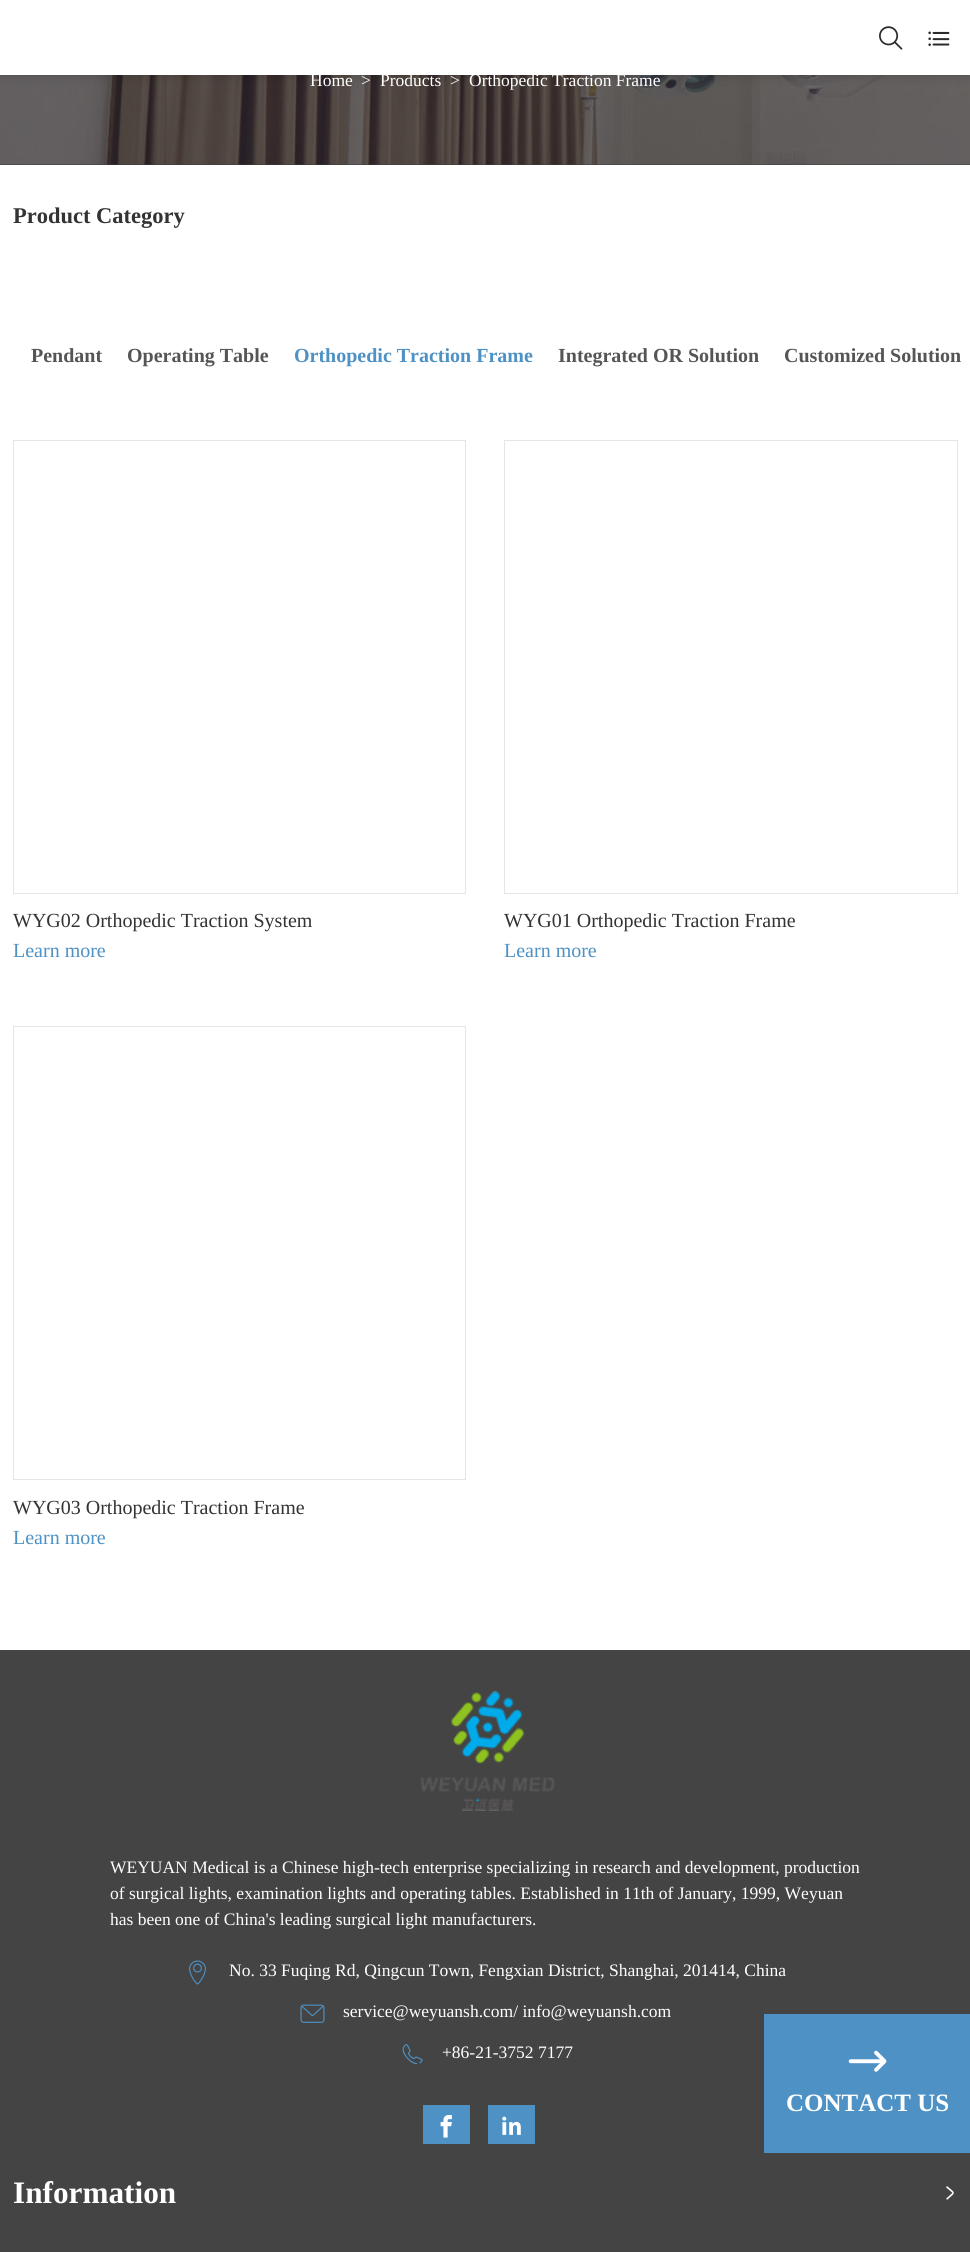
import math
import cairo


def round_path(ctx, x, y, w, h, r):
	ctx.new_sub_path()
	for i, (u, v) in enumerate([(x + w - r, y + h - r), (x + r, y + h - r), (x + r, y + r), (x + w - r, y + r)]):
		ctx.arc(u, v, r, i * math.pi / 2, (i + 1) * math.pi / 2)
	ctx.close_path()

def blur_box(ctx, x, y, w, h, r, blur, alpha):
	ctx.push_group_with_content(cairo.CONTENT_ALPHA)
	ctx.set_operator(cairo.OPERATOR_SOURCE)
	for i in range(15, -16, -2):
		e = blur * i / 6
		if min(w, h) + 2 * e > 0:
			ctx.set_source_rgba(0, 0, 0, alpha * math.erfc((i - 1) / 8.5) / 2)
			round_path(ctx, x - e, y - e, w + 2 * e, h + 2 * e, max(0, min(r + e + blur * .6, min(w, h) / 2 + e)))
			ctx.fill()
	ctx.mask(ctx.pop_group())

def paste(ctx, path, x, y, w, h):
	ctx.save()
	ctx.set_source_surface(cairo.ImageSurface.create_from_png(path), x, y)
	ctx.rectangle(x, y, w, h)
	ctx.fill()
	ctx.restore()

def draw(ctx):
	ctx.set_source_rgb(1, 1, 1)
	ctx.paint()
	ctx.set_source_rgb(0.243, 0.227, 0.231)
	ctx.rectangle(0, 75, 970, 90)
	ctx.fill()
	paste(ctx, 'media/3.png', 0, 75, 970, 90)
	ctx.set_source_rgb(0, 0, 0)
	blur_box(ctx, 0, 0, 970, 75, 0, 6, 0.2)
	ctx.set_source_rgb(1, 1, 1)
	ctx.rectangle(0, 0, 970, 75)
	ctx.fill()
	paste(ctx, 'media/1.png', 879, 26, 24, 24)
	paste(ctx, 'media/2.png', 928, 31, 22, 15)
	ctx.select_font_face('Liberation Serif')
	ctx.set_font_size(17.5)
	for x, y, s in [
		(310, 86, 'Home'),
		(361, 86, '>'),
		(380, 86, 'Products'),
		(450, 86, '>'),
		(469, 86, 'Orthopedic Traction Frame'),
	]:
		ctx.move_to(x, y)
		ctx.show_text(s)
	ctx.select_font_face('Liberation Serif', cairo.FONT_SLANT_NORMAL, cairo.FONT_WEIGHT_BOLD)
	ctx.set_font_size(22.5)
	ctx.set_source_rgb(0.2, 0.2, 0.2)
	ctx.move_to(13, 223)
	ctx.show_text('Product Category')
	ctx.set_font_size(20)
	ctx.set_source_rgb(0.333, 0.333, 0.333)
	ctx.move_to(31, 362)
	ctx.show_text('Pendant')
	ctx.move_to(127, 362)
	ctx.show_text('Operating Table')
	ctx.set_source_rgb(0.302, 0.569, 0.773)
	ctx.move_to(294, 362)
	ctx.show_text('Orthopedic Traction Frame')
	ctx.set_source_rgb(0.333, 0.333, 0.333)
	ctx.move_to(558, 362)
	ctx.show_text('Integrated OR Solution')
	ctx.move_to(784, 362)
	ctx.show_text('Customized Solution')
	ctx.rectangle(13.5, 440.5, 452, 453)
	ctx.set_source_rgb(0.898, 0.898, 0.898)
	ctx.set_line_width(1)
	ctx.stroke()
	ctx.select_font_face('Liberation Serif')
	ctx.set_source_rgb(0.2, 0.2, 0.2)
	ctx.move_to(13, 927)
	ctx.show_text('WYG02 Orthopedic Traction System')
	ctx.set_source_rgb(0.302, 0.569, 0.773)
	ctx.move_to(13, 957)
	ctx.show_text('Learn more')
	ctx.rectangle(504.5, 440.5, 453, 453)
	ctx.set_source_rgb(0.898, 0.898, 0.898)
	ctx.stroke()
	ctx.set_source_rgb(0.2, 0.2, 0.2)
	ctx.move_to(504, 927)
	ctx.show_text('WYG01 Orthopedic Traction Frame')
	ctx.set_source_rgb(0.302, 0.569, 0.773)
	ctx.move_to(504, 957)
	ctx.show_text('Learn more')
	ctx.rectangle(13.5, 1026.5, 452, 453)
	ctx.set_source_rgb(0.898, 0.898, 0.898)
	ctx.stroke()
	ctx.set_source_rgb(0.2, 0.2, 0.2)
	ctx.move_to(13, 1514)
	ctx.show_text('WYG03 Orthopedic Traction Frame')
	ctx.set_source_rgb(0.302, 0.569, 0.773)
	ctx.move_to(13, 1544)
	ctx.show_text('Learn more')
	ctx.set_source_rgb(0.267, 0.267, 0.267)
	ctx.rectangle(0, 1650, 970, 602)
	ctx.fill()
	paste(ctx, 'media/4.png', 420, 1690, 135, 121)
	ctx.set_font_size(17.5)
	ctx.set_source_rgb(1, 1, 1)
	for x, y, s in [
		(110, 1873, 'WEYUAN Medical is a Chinese high-tech enterprise specializing in research and development, production'),
		(110, 1899, 'of surgical lights, examination lights and operating tables. Established in 11th of January, 1999, Weyuan'),
		(110, 1925, 'has been one of China\'s leading surgical light manufacturers.'),
	]:
		ctx.move_to(x, y)
		ctx.show_text(s)
	paste(ctx, 'media/5.png', 189, 1960, 17, 25)
	ctx.move_to(229, 1976)
	ctx.show_text('No. 33 Fuqing Rd, Qingcun Town, Fengxian District, Shanghai, 201414, China')
	paste(ctx, 'media/6.png', 300, 2004, 25, 19)
	ctx.move_to(343, 2017)
	ctx.show_text('service@weyuansh.com/ info@weyuansh.com')
	paste(ctx, 'media/7.png', 402, 2044, 21, 21)
	ctx.move_to(442, 2058)
	ctx.show_text('+86-21-3752 7177')
	ctx.set_source_rgb(0.302, 0.569, 0.773)
	ctx.rectangle(423, 2105, 47, 39)
	ctx.fill()
	paste(ctx, 'media/8.png', 440, 2115, 12, 23)
	ctx.rectangle(488, 2105, 47, 39)
	ctx.fill()
	paste(ctx, 'media/9.png', 502, 2116, 19, 19)
	ctx.select_font_face('Liberation Serif', cairo.FONT_SLANT_NORMAL, cairo.FONT_WEIGHT_BOLD)
	ctx.set_font_size(31.25)
	ctx.set_source_rgb(1, 1, 1)
	ctx.move_to(13, 2203)
	ctx.show_text('Information')
	paste(ctx, 'media/10.png', 946, 2186, 8, 14)
	ctx.set_source_rgb(0.302, 0.569, 0.773)
	ctx.rectangle(764, 2014, 206, 139)
	ctx.fill()
	paste(ctx, 'media/11.png', 848, 2050, 39, 22)
	ctx.set_font_size(25)
	ctx.set_source_rgb(1, 1, 1)
	ctx.move_to(786, 2111)
	ctx.show_text('CONTACT US')


surface = cairo.ImageSurface(cairo.FORMAT_RGB24, 970, 2252)
ctx = cairo.Context(surface)
options = cairo.FontOptions()
options.set_hint_metrics(cairo.HINT_METRICS_OFF)
options.set_hint_style(cairo.HINT_STYLE_NONE)
ctx.set_font_options(options)
ctx.set_miter_limit(4)
draw(ctx)
surface.write_to_png('image.png')
